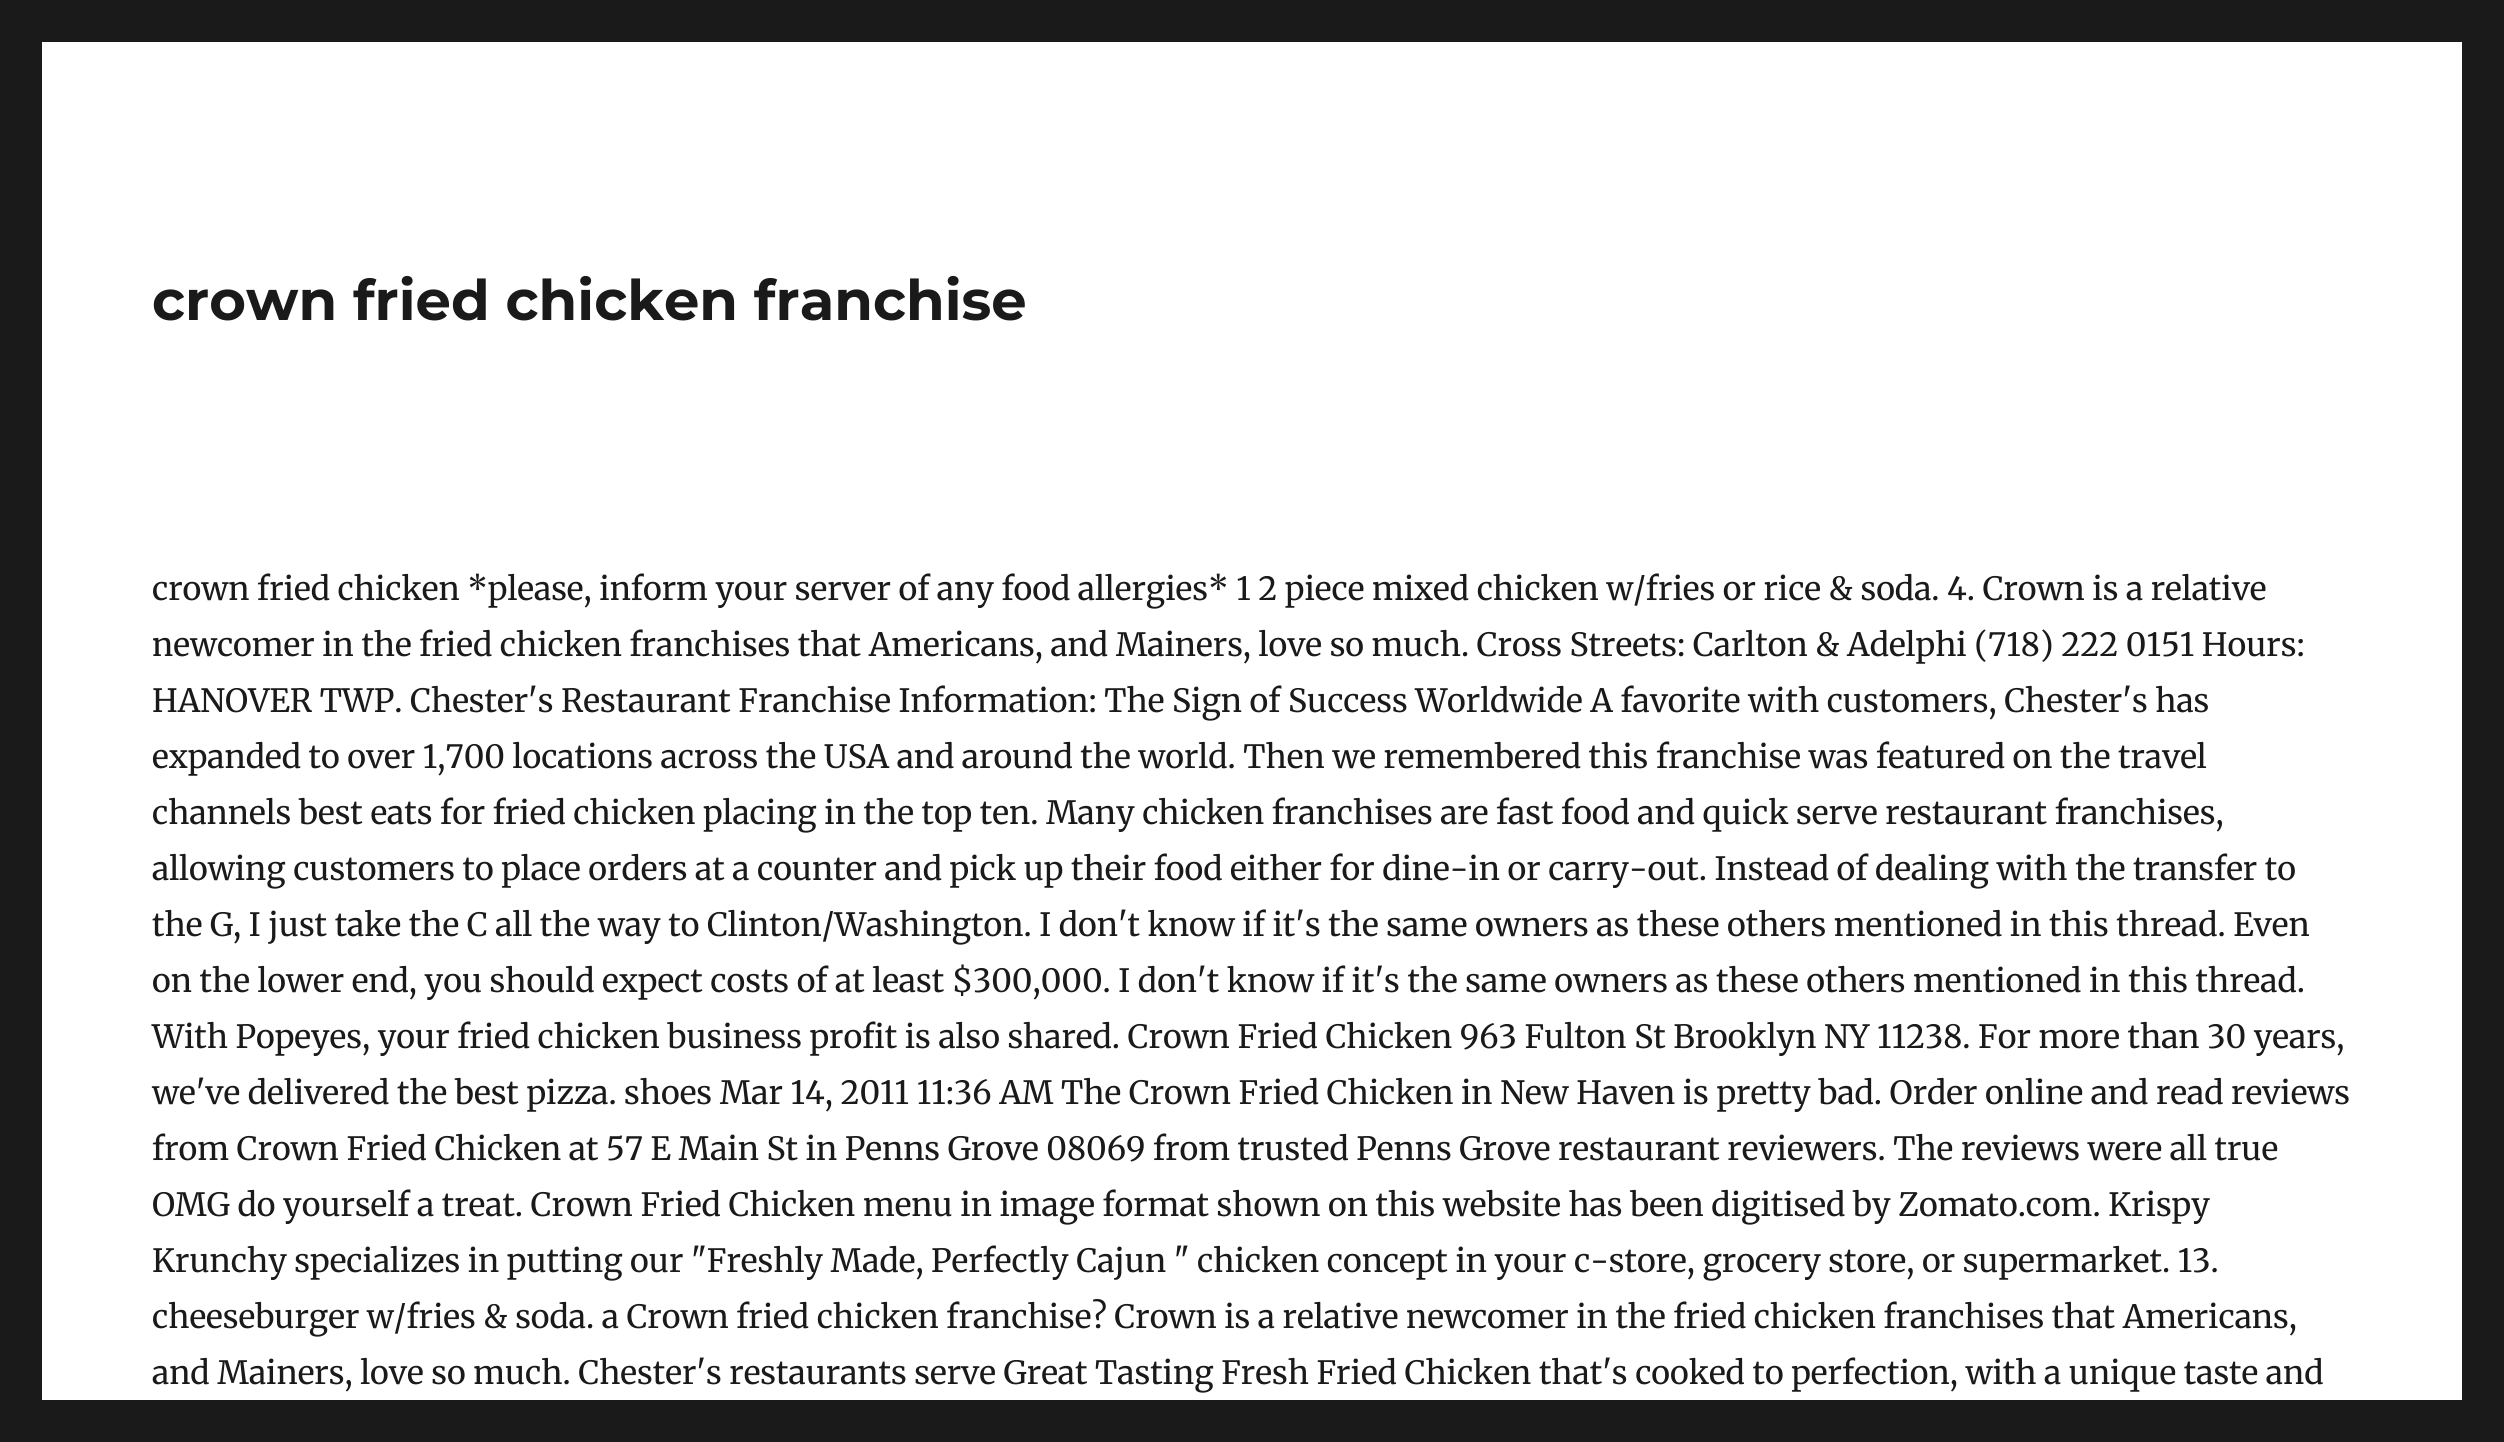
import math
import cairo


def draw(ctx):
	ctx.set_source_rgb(0.102, 0.102, 0.102)
	ctx.paint()
	ctx.set_source_rgb(1, 1, 1)
	ctx.rectangle(42, 42, 2420, 1358)
	ctx.fill()
	ctx.select_font_face('Montserrat', cairo.FONT_SLANT_NORMAL, cairo.FONT_WEIGHT_BOLD)
	ctx.set_font_size(56)
	ctx.set_source_rgb(0.102, 0.102, 0.102)
	ctx.move_to(152, 320)
	ctx.show_text('crown fried chicken franchise')
	ctx.select_font_face('Merriweather')
	ctx.set_font_size(32)
	for x, y, s in [
		(152, 600, 'crown fried chicken *please, inform your server of any food allergies* 1 2 piece mixed chicken w/fries or rice & soda. 4. Crown is a relative'),
		(152, 656, 'newcomer in the fried chicken franchises that Americans, and Mainers, love so much. Cross Streets: Carlton & Adelphi (718) 222 0151 Hours:'),
		(152, 712, 'HANOVER TWP. Chester\'s Restaurant Franchise Information: The Sign of Success Worldwide A favorite with customers, Chester\'s has'),
		(152, 768, 'expanded to over 1,700 locations across the USA and around the world. Then we remembered this franchise was featured on the travel'),
		(152, 824, 'channels best eats for fried chicken placing in the top ten. Many chicken franchises are fast food and quick serve restaurant franchises,'),
		(152, 880, 'allowing customers to place orders at a counter and pick up their food either for dine-in or carry-out. Instead of dealing with the transfer to'),
		(152, 936, 'the G, I just take the C all the way to Clinton/Washington. I don\'t know if it\'s the same owners as these others mentioned in this thread. Even'),
		(152, 992, 'on the lower end, you should expect costs of at least $300,000. I don\'t know if it\'s the same owners as these others mentioned in this thread.'),
		(152, 1048, 'With Popeyes, your fried chicken business profit is also shared. Crown Fried Chicken 963 Fulton St Brooklyn NY 11238. For more than 30 years,'),
		(152, 1104, 'we\'ve delivered the best pizza. shoes Mar 14, 2011 11:36 AM The Crown Fried Chicken in New Haven is pretty bad. Order online and read reviews'),
		(152, 1160, 'from Crown Fried Chicken at 57 E Main St in Penns Grove 08069 from trusted Penns Grove restaurant reviewers. The reviews were all true'),
		(152, 1216, 'OMG do yourself a treat. Crown Fried Chicken menu in image format shown on this website has been digitised by Zomato.com. Krispy'),
		(152, 1272, 'Krunchy specializes in putting our "Freshly Made, Perfectly Cajun " chicken concept in your c-store, grocery store, or supermarket. 13.'),
		(152, 1328, 'cheeseburger w/fries & soda. a Crown fried chicken franchise? Crown is a relative newcomer in the fried chicken franchises that Americans,'),
		(152, 1384, 'and Mainers, love so much. Chester\'s restaurants serve Great Tasting Fresh Fried Chicken that\'s cooked to perfection, with a unique taste and'),
	]:
		ctx.move_to(x, y)
		ctx.show_text(s)


surface = cairo.ImageSurface(cairo.FORMAT_RGB24, 2504, 1442)
ctx = cairo.Context(surface)
options = cairo.FontOptions()
options.set_hint_metrics(cairo.HINT_METRICS_OFF)
options.set_hint_style(cairo.HINT_STYLE_NONE)
ctx.set_font_options(options)
ctx.set_miter_limit(4)
draw(ctx)
surface.write_to_png('image.png')
